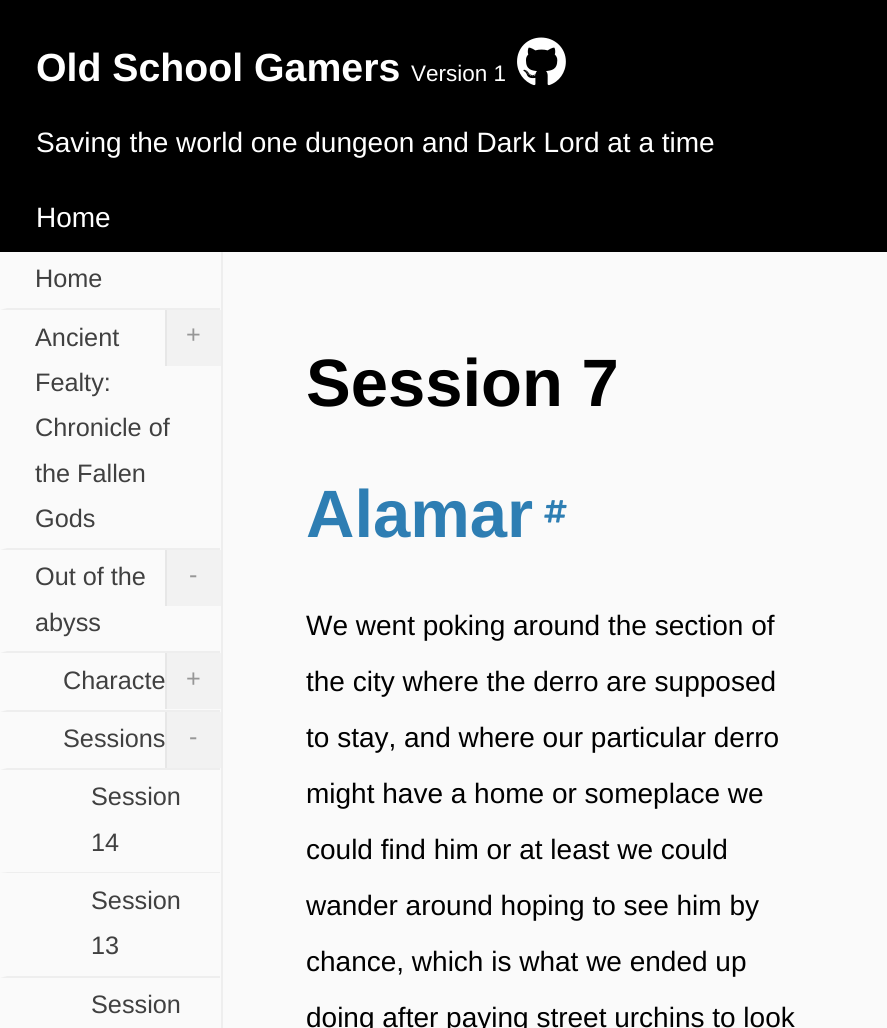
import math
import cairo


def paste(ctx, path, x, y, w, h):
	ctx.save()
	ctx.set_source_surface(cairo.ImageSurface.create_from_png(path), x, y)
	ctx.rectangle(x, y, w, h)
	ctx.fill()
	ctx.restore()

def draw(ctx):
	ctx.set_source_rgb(0.98, 0.98, 0.98)
	ctx.paint()
	ctx.set_source_rgb(0, 0, 0)
	ctx.rectangle(0, 0, 887, 252)
	ctx.fill()
	ctx.select_font_face('Liberation Sans', cairo.FONT_SLANT_NORMAL, cairo.FONT_WEIGHT_BOLD)
	ctx.set_font_size(39.25)
	ctx.set_source_rgb(1, 1, 1)
	ctx.move_to(36, 81)
	ctx.show_text('Old School Gamers')
	ctx.select_font_face('Liberation Sans')
	ctx.set_font_size(22.5)
	ctx.move_to(411, 81)
	ctx.show_text('Version 1')
	paste(ctx, 'media/1.png', 517, 37, 49, 49)
	ctx.set_font_size(28)
	ctx.move_to(36, 152)
	ctx.show_text('Saving the world one dungeon and Dark Lord at a time')
	ctx.move_to(36, 227)
	ctx.show_text('Home')
	ctx.set_source_rgb(0.933, 0.933, 0.933)
	ctx.rectangle(221, 252, 2, 776)
	ctx.fill()
	ctx.new_path()
	ctx.move_to(220, 310)
	ctx.line_to(0, 310)
	ctx.line_to(7, 308)
	ctx.line_to(220, 308)
	ctx.close_path()
	ctx.fill()
	ctx.set_font_size(25.25)
	ctx.set_source_rgb(0.251, 0.251, 0.251)
	ctx.move_to(35, 287)
	ctx.show_text('Home')
	ctx.set_source_rgb(0.933, 0.933, 0.933)
	ctx.new_path()
	ctx.move_to(220, 550)
	ctx.line_to(0, 550)
	ctx.line_to(7, 548)
	ctx.line_to(220, 548)
	ctx.close_path()
	ctx.fill()
	ctx.set_source_rgb(0.251, 0.251, 0.251)
	ctx.move_to(35, 346)
	ctx.show_text('Ancient')
	ctx.set_source_rgb(0.949, 0.949, 0.949)
	ctx.rectangle(167, 310, 54, 56)
	ctx.fill()
	ctx.set_source_rgb(0.906, 0.906, 0.906)
	ctx.rectangle(165, 310, 2, 56)
	ctx.fill()
	ctx.set_source_rgb(0.592, 0.592, 0.592)
	ctx.move_to(186, 343)
	ctx.show_text('+')
	ctx.set_source_rgb(0.251, 0.251, 0.251)
	for x, y, s in [
		(35, 391, 'Fealty:'),
		(35, 436, 'Chronicle of'),
		(35, 482, 'the Fallen'),
		(35, 527, 'Gods'),
	]:
		ctx.move_to(x, y)
		ctx.show_text(s)
	ctx.set_source_rgb(0.933, 0.933, 0.933)
	ctx.new_path()
	ctx.move_to(220, 653)
	ctx.line_to(0, 653)
	ctx.line_to(7, 651)
	ctx.line_to(220, 651)
	ctx.close_path()
	ctx.fill()
	ctx.set_source_rgb(0.251, 0.251, 0.251)
	ctx.move_to(35, 585)
	ctx.show_text('Out of the')
	ctx.set_source_rgb(0.949, 0.949, 0.949)
	ctx.rectangle(167, 550, 54, 56)
	ctx.fill()
	ctx.set_source_rgb(0.906, 0.906, 0.906)
	ctx.rectangle(165, 550, 2, 56)
	ctx.fill()
	ctx.set_source_rgb(0.592, 0.592, 0.592)
	ctx.move_to(189, 583)
	ctx.show_text('-')
	ctx.set_source_rgb(0.251, 0.251, 0.251)
	ctx.move_to(35, 631)
	ctx.show_text('abyss')
	ctx.set_source_rgb(0.933, 0.933, 0.933)
	ctx.new_path()
	ctx.move_to(220, 712)
	ctx.line_to(0, 712)
	ctx.line_to(7, 710)
	ctx.line_to(220, 710)
	ctx.close_path()
	ctx.fill()
	ctx.set_source_rgb(0.251, 0.251, 0.251)
	ctx.move_to(63, 689)
	ctx.show_text('Characte')
	ctx.set_source_rgb(0.949, 0.949, 0.949)
	ctx.rectangle(167, 653, 54, 56)
	ctx.fill()
	ctx.set_source_rgb(0.906, 0.906, 0.906)
	ctx.rectangle(165, 653, 2, 56)
	ctx.fill()
	ctx.set_source_rgb(0.592, 0.592, 0.592)
	ctx.move_to(186, 687)
	ctx.show_text('+')
	ctx.set_source_rgb(0.933, 0.933, 0.933)
	ctx.new_path()
	ctx.move_to(220, 770)
	ctx.line_to(0, 770)
	ctx.line_to(7, 768)
	ctx.line_to(220, 768)
	ctx.close_path()
	ctx.fill()
	ctx.set_source_rgb(0.251, 0.251, 0.251)
	ctx.move_to(63, 747)
	ctx.show_text('Sessions')
	ctx.set_source_rgb(0.949, 0.949, 0.949)
	ctx.rectangle(167, 712, 54, 56)
	ctx.fill()
	ctx.set_source_rgb(0.906, 0.906, 0.906)
	ctx.rectangle(165, 712, 2, 56)
	ctx.fill()
	ctx.set_source_rgb(0.592, 0.592, 0.592)
	ctx.move_to(189, 745)
	ctx.show_text('-')
	ctx.set_source_rgb(0.933, 0.933, 0.933)
	ctx.new_path()
	ctx.move_to(220, 873)
	ctx.line_to(0, 873)
	ctx.line_to(7, 872)
	ctx.line_to(220, 872)
	ctx.close_path()
	ctx.fill()
	ctx.set_source_rgb(0.251, 0.251, 0.251)
	ctx.move_to(91, 805)
	ctx.show_text('Session')
	ctx.move_to(91, 851)
	ctx.show_text('14')
	ctx.set_source_rgb(0.933, 0.933, 0.933)
	ctx.new_path()
	ctx.move_to(220, 978)
	ctx.line_to(0, 978)
	ctx.line_to(7, 976)
	ctx.line_to(220, 976)
	ctx.close_path()
	ctx.fill()
	ctx.set_source_rgb(0.251, 0.251, 0.251)
	for x, y, s in [
		(91, 909, 'Session'),
		(91, 954, '13'),
		(91, 1013, 'Session'),
	]:
		ctx.move_to(x, y)
		ctx.show_text(s)
	ctx.select_font_face('Liberation Sans', cairo.FONT_SLANT_NORMAL, cairo.FONT_WEIGHT_BOLD)
	ctx.set_font_size(67)
	ctx.set_source_rgb(0, 0, 0)
	ctx.move_to(306, 406)
	ctx.show_text('Session 7')
	ctx.set_source_rgb(0.18, 0.494, 0.702)
	ctx.move_to(306, 537)
	ctx.show_text('Alamar')
	paste(ctx, 'media/2.png', 544, 500, 23, 23)
	ctx.select_font_face('Liberation Sans')
	ctx.set_font_size(28)
	ctx.set_source_rgb(0, 0, 0)
	for x, y, s in [
		(306, 635, 'We went poking around the section of'),
		(306, 691, 'the city where the derro are supposed'),
		(306, 747, 'to stay, and where our particular derro'),
		(306, 803, 'might have a home or someplace we'),
		(306, 859, 'could find him or at least we could'),
		(306, 915, 'wander around hoping to see him by'),
		(306, 971, 'chance, which is what we ended up'),
		(306, 1027, 'doing after paying street urchins to look'),
	]:
		ctx.move_to(x, y)
		ctx.show_text(s)


surface = cairo.ImageSurface(cairo.FORMAT_RGB24, 887, 1028)
ctx = cairo.Context(surface)
options = cairo.FontOptions()
options.set_hint_metrics(cairo.HINT_METRICS_OFF)
options.set_hint_style(cairo.HINT_STYLE_NONE)
ctx.set_font_options(options)
ctx.set_miter_limit(4)
draw(ctx)
surface.write_to_png('image.png')
